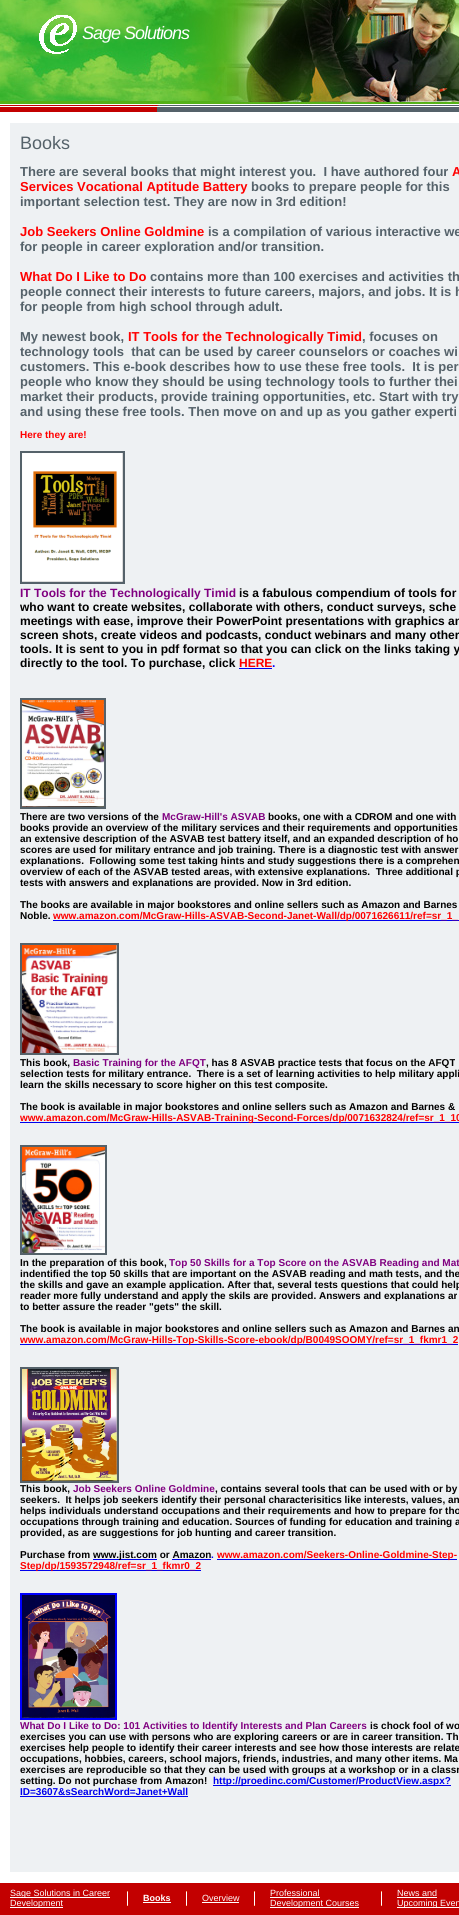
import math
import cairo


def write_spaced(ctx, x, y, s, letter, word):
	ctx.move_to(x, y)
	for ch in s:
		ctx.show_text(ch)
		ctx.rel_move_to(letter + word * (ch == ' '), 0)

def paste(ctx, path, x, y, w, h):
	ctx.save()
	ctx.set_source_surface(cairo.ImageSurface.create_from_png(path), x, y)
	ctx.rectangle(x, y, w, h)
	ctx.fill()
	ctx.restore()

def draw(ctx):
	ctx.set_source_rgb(1, 1, 1)
	ctx.paint()
	paste(ctx, 'media/1.png', 0, 0, 459, 106)
	paste(ctx, 'media/2.png', 39, 15, 38, 39)
	ctx.select_font_face('Liberation Sans', cairo.FONT_SLANT_ITALIC)
	ctx.set_font_size(18)
	ctx.set_source_rgb(1, 1, 1)
	write_spaced(ctx, 82, 39, 'Sage Solutions', -1, 0)
	ctx.set_source_rgb(0.765, 0, 0)
	ctx.rectangle(0, 107, 157, 5)
	ctx.fill()
	ctx.set_source_rgb(0.333, 0.384, 0.416)
	ctx.rectangle(157, 107, 302, 5)
	ctx.fill()
	ctx.set_source_rgb(0.933, 0.945, 0.953)
	ctx.rectangle(10, 123, 449, 1749)
	ctx.fill()
	ctx.select_font_face('Liberation Sans')
	ctx.set_source_rgb(0.333, 0.384, 0.416)
	ctx.move_to(20, 149)
	ctx.show_text('Books')
	ctx.select_font_face('Liberation Sans', cairo.FONT_SLANT_NORMAL, cairo.FONT_WEIGHT_BOLD)
	ctx.set_font_size(13)
	ctx.move_to(20, 176)
	ctx.show_text('There are several books that might interest you.  I have authored four')
	ctx.set_source_rgb(1, 0, 0)
	ctx.move_to(452, 176)
	ctx.show_text('A')
	ctx.move_to(20, 191)
	ctx.show_text('Services Vocational Aptitude Battery')
	ctx.set_source_rgb(0.333, 0.384, 0.416)
	ctx.move_to(251, 191)
	ctx.show_text('books to prepare people for this')
	ctx.move_to(20, 206)
	ctx.show_text('important selection test. They are now in 3rd edition!')
	ctx.set_source_rgb(1, 0, 0)
	ctx.move_to(20, 236)
	ctx.show_text('Job Seekers Online Goldmine')
	ctx.set_source_rgb(0.333, 0.384, 0.416)
	ctx.move_to(208, 236)
	ctx.show_text('is a compilation of various interactive we')
	ctx.move_to(20, 251)
	ctx.show_text('for people in career exploration and/or transition.')
	ctx.set_source_rgb(1, 0, 0)
	ctx.move_to(20, 281)
	ctx.show_text('What Do I Like to Do')
	ctx.set_source_rgb(0.333, 0.384, 0.416)
	for x, y, s in [
		(150, 281, 'contains more than 100 exercises and activities th'),
		(20, 296, 'people connect their interests to future careers, majors, and jobs. It is h'),
		(20, 311, 'for people from high school through adult.'),
		(20, 341, 'My newest book,'),
	]:
		ctx.move_to(x, y)
		ctx.show_text(s)
	ctx.set_source_rgb(1, 0, 0)
	ctx.move_to(128, 341)
	ctx.show_text('IT Tools for the Technologically Timid')
	ctx.set_source_rgb(0.333, 0.384, 0.416)
	for x, y, s in [
		(362, 341, ', focuses on'),
		(20, 356, 'technology tools  that can be used by career counselors or coaches wi'),
		(20, 371, 'customers. This e-book describes how to use these free tools.  It is per'),
		(20, 386, 'people who know they should be using technology tools to further thei'),
		(20, 401, 'market their products, provide training opportunities, etc. Start with try'),
		(20, 416, 'and using these free tools. Then move on and up as you gather experti'),
	]:
		ctx.move_to(x, y)
		ctx.show_text(s)
	ctx.set_font_size(10)
	ctx.set_source_rgb(1, 0, 0)
	ctx.move_to(20, 438)
	ctx.show_text('Here they are!')
	ctx.rectangle(21, 452, 103, 131)
	ctx.set_source_rgb(0.333, 0.384, 0.416)
	ctx.stroke()
	paste(ctx, 'media/3.png', 22, 453, 101, 129)
	ctx.set_font_size(12)
	ctx.set_source_rgb(0.502, 0, 0.502)
	ctx.move_to(20, 597)
	ctx.show_text('IT Tools for the Technologically Timid')
	ctx.set_source_rgb(0, 0, 0)
	for x, y, s in [
		(239, 597, 'is a fabulous compendium of tools for'),
		(20, 611, 'who want to create websites, collaborate with others, conduct surveys, sche'),
		(20, 625, 'meetings with ease, improve their PowerPoint presentations with graphics an'),
		(20, 639, 'screen shots, create videos and podcasts, conduct webinars and many other'),
		(20, 653, 'tools. It is sent to you in pdf format so that you can click on the links taking y'),
		(20, 667, 'directly to the tool. To purchase, click'),
	]:
		ctx.move_to(x, y)
		ctx.show_text(s)
	ctx.set_source_rgb(1, 0, 0)
	ctx.move_to(239, 667)
	ctx.show_text('HERE')
	ctx.set_source_rgb(0, 0, 0.933)
	ctx.rectangle(239, 668, 33, 1)
	ctx.fill()
	ctx.set_source_rgb(0, 0, 1)
	ctx.move_to(272, 667)
	ctx.show_text('.')
	ctx.rectangle(21, 699, 84, 109)
	ctx.set_source_rgb(0.333, 0.384, 0.416)
	ctx.stroke()
	paste(ctx, 'media/4.png', 22, 700, 82, 107)
	ctx.set_font_size(10)
	ctx.set_source_rgb(0, 0, 0)
	ctx.move_to(20, 820)
	ctx.show_text('There are two versions of the')
	ctx.set_source_rgb(0.502, 0, 0.502)
	ctx.move_to(162, 820)
	ctx.show_text('McGraw-Hill\'s ASVAB')
	ctx.set_source_rgb(0, 0, 0)
	for x, y, s in [
		(268, 820, 'books, one with a CDROM and one with'),
		(20, 831, 'books provide an overview of the military services and their requirements and opportunities'),
		(20, 842, 'an extensive description of the ASVAB test battery itself, and an expanded description of ho'),
		(20, 853, 'scores are used for military entrance and job training. There is a diagnostic test with answer'),
		(20, 864, 'explanations.  Following some test taking hints and study suggestions there is a comprehen'),
		(20, 875, 'overview of each of the ASVAB tested areas, with extensive explanations.  Three additional p'),
		(20, 886, 'tests with answers and explanations are provided. Now in 3rd edition.'),
		(20, 908, 'The books are available in major bookstores and online sellers such as Amazon and Barnes'),
		(20, 919, 'Noble.'),
	]:
		ctx.move_to(x, y)
		ctx.show_text(s)
	ctx.set_source_rgb(0, 0, 0.933)
	ctx.rectangle(53, 920, 406, 1)
	ctx.fill()
	ctx.set_source_rgb(1, 0, 0)
	ctx.move_to(53, 919)
	ctx.show_text('www.amazon.com/McGraw-Hills-ASVAB-Second-Janet-Wall/dp/0071626611/ref=sr_1_')
	ctx.rectangle(21, 944, 97, 110)
	ctx.set_source_rgb(0.333, 0.384, 0.416)
	ctx.stroke()
	paste(ctx, 'media/5.png', 22, 945, 95, 108)
	ctx.set_source_rgb(0, 0, 0)
	ctx.move_to(20, 1066)
	ctx.show_text('This book,')
	ctx.set_source_rgb(0.502, 0, 0.502)
	ctx.move_to(73, 1066)
	ctx.show_text('Basic Training for the AFQT')
	ctx.set_source_rgb(0, 0, 0)
	for x, y, s in [
		(206, 1066, ', has 8 ASVAB practice tests that focus on the AFQT'),
		(20, 1077, 'selection tests for military entrance.  There is a set of learning activities to help military appli'),
		(20, 1088, 'learn the skills necessary to score higher on this test composite.'),
		(20, 1110, 'The book is available in major bookstores and online sellers such as Amazon and Barnes &'),
	]:
		ctx.move_to(x, y)
		ctx.show_text(s)
	ctx.set_source_rgb(0, 0, 0.933)
	ctx.rectangle(20, 1122, 439, 1)
	ctx.fill()
	ctx.set_source_rgb(1, 0, 0)
	ctx.move_to(20, 1121)
	ctx.show_text('www.amazon.com/McGraw-Hills-ASVAB-Training-Second-Forces/dp/0071632824/ref=sr_1_10')
	ctx.rectangle(21, 1146, 85, 108)
	ctx.set_source_rgb(0.333, 0.384, 0.416)
	ctx.stroke()
	paste(ctx, 'media/6.png', 22, 1147, 83, 106)
	ctx.set_source_rgb(0, 0, 0)
	ctx.move_to(20, 1266)
	ctx.show_text('In the preparation of this book,')
	ctx.set_source_rgb(0.502, 0, 0.502)
	ctx.move_to(169, 1266)
	ctx.show_text('Top 50 Skills for a Top Score on the ASVAB Reading and Mat')
	ctx.set_source_rgb(0, 0, 0)
	for x, y, s in [
		(20, 1277, 'indentified the top 50 skills that are important on the ASVAB reading and math tests, and the'),
		(20, 1288, 'the skills and gave an example application. After that, several tests questions that could help'),
		(20, 1299, 'reader more fully understand and apply the skils are provided. Answers and explanations ar'),
		(20, 1310, 'to better assure the reader "gets" the skill.'),
		(20, 1332, 'The book is available in major bookstores and online sellers such as Amazon and Barnes an'),
	]:
		ctx.move_to(x, y)
		ctx.show_text(s)
	ctx.set_source_rgb(0, 0, 0.933)
	ctx.rectangle(20, 1344, 438, 1)
	ctx.fill()
	ctx.set_source_rgb(1, 0, 0)
	ctx.move_to(20, 1343)
	ctx.show_text('www.amazon.com/McGraw-Hills-Top-Skills-Score-ebook/dp/B0049SOOMY/ref=sr_1_fkmr1_2')
	ctx.rectangle(21, 1368, 97, 114)
	ctx.set_source_rgb(0.333, 0.384, 0.416)
	ctx.stroke()
	paste(ctx, 'media/7.png', 22, 1369, 95, 112)
	ctx.set_source_rgb(0, 0, 0)
	ctx.move_to(20, 1492)
	ctx.show_text('This book,')
	ctx.set_source_rgb(0.502, 0, 0.502)
	ctx.move_to(73, 1492)
	ctx.show_text('Job Seekers Online Goldmine')
	ctx.set_source_rgb(0, 0, 0)
	for x, y, s in [
		(215, 1492, ', contains several tools that can be used with or by'),
		(20, 1503, 'seekers.  It helps job seekers identify their personal characterisitics like interests, values, an'),
		(20, 1514, 'helps individuals understand occupations and their requirements and how to prepare for tho'),
		(20, 1525, 'occupations through training and education. Sources of funding for education and training a'),
		(20, 1536, 'provided, as are suggestions for job hunting and career transition.'),
		(20, 1558, 'Purchase from'),
	]:
		ctx.move_to(x, y)
		ctx.show_text(s)
	ctx.set_source_rgb(0, 0, 0.933)
	ctx.rectangle(93, 1559, 64, 1)
	ctx.fill()
	ctx.set_source_rgb(0, 0, 0)
	ctx.move_to(93, 1558)
	ctx.show_text('www.jist.com or Amazon')
	ctx.set_source_rgb(0, 0, 1)
	ctx.move_to(211, 1558)
	ctx.show_text('.')
	ctx.set_source_rgb(0, 0, 0.933)
	ctx.rectangle(172, 1559, 39, 1)
	ctx.fill()
	ctx.rectangle(217, 1559, 240, 1)
	ctx.fill()
	ctx.set_source_rgb(1, 0, 0)
	ctx.move_to(217, 1558)
	ctx.show_text('www.amazon.com/Seekers-Online-Goldmine-Step-')
	ctx.set_source_rgb(0, 0, 0.933)
	ctx.rectangle(20, 1570, 181, 1)
	ctx.fill()
	ctx.set_source_rgb(1, 0, 0)
	ctx.move_to(20, 1569)
	ctx.show_text('Step/dp/1593572948/ref=sr_1_fkmr0_2')
	ctx.rectangle(21, 1594, 95, 125)
	ctx.set_source_rgb(0, 0, 1)
	ctx.stroke()
	paste(ctx, 'media/8.png', 22, 1595, 93, 123)
	ctx.set_source_rgb(0.502, 0, 0.502)
	ctx.move_to(20, 1729)
	ctx.show_text('What Do I Like to Do: 101 Activities to Identify Interests and Plan Careers')
	ctx.set_source_rgb(0, 0, 0)
	for x, y, s in [
		(370, 1729, 'is chock fool of wo'),
		(20, 1740, 'exercises you can use with persons who are exploring careers or are in career transition. Th'),
		(20, 1751, 'exercises help people to identify their career interests and see how those interests are relate'),
		(20, 1762, 'occupations, hobbies, careers, school majors, friends, industries, and many other items. Ma'),
		(20, 1773, 'exercises are reproducible so that they can be used with groups at a workshop or in a classr'),
		(20, 1784, 'setting. Do not purchase from Amazon!'),
	]:
		ctx.move_to(x, y)
		ctx.show_text(s)
	ctx.set_source_rgb(0, 0, 0.933)
	ctx.rectangle(213, 1785, 238, 1)
	ctx.fill()
	ctx.move_to(213, 1784)
	ctx.show_text('http://proedinc.com/Customer/ProductView.aspx?')
	ctx.move_to(20, 1795)
	ctx.show_text('ID=3607&sSearchWord=Janet+Wall')
	ctx.rectangle(20, 1796, 168, 1)
	ctx.fill()
	ctx.set_source_rgb(0.765, 0, 0)
	ctx.rectangle(0, 1883, 459, 32)
	ctx.fill()
	ctx.set_source_rgb(1, 1, 1)
	ctx.rectangle(10, 1897, 100, 1)
	ctx.fill()
	ctx.select_font_face('Liberation Sans')
	ctx.set_font_size(9)
	ctx.move_to(10, 1896)
	ctx.show_text('Sage Solutions in Career')
	ctx.rectangle(10, 1907, 53, 1)
	ctx.fill()
	ctx.move_to(10, 1906)
	ctx.show_text('Development')
	paste(ctx, 'media/9.png', 127, 1891, 1, 15)
	ctx.select_font_face('Liberation Sans', cairo.FONT_SLANT_NORMAL, cairo.FONT_WEIGHT_BOLD)
	ctx.move_to(143, 1901)
	ctx.show_text('Books')
	ctx.rectangle(143, 1902, 28, 1)
	ctx.fill()
	paste(ctx, 'media/9.png', 186, 1891, 1, 15)
	ctx.select_font_face('Liberation Sans')
	ctx.move_to(202, 1901)
	ctx.show_text('Overview')
	ctx.rectangle(202, 1902, 37, 1)
	ctx.fill()
	paste(ctx, 'media/9.png', 254, 1891, 1, 15)
	ctx.move_to(270, 1896)
	ctx.show_text('Professional')
	ctx.rectangle(270, 1897, 50, 1)
	ctx.fill()
	ctx.rectangle(270, 1907, 89, 1)
	ctx.fill()
	ctx.move_to(270, 1906)
	ctx.show_text('Development Courses')
	paste(ctx, 'media/9.png', 381, 1891, 1, 15)
	ctx.move_to(397, 1896)
	ctx.show_text('News and')
	ctx.rectangle(397, 1897, 40, 1)
	ctx.fill()
	ctx.rectangle(397, 1907, 62, 1)
	ctx.fill()
	ctx.move_to(397, 1906)
	ctx.show_text('Upcoming Even')


surface = cairo.ImageSurface(cairo.FORMAT_RGB24, 459, 1915)
ctx = cairo.Context(surface)
options = cairo.FontOptions()
options.set_hint_metrics(cairo.HINT_METRICS_OFF)
options.set_hint_style(cairo.HINT_STYLE_NONE)
ctx.set_font_options(options)
ctx.set_miter_limit(4)
draw(ctx)
surface.write_to_png('image.png')
